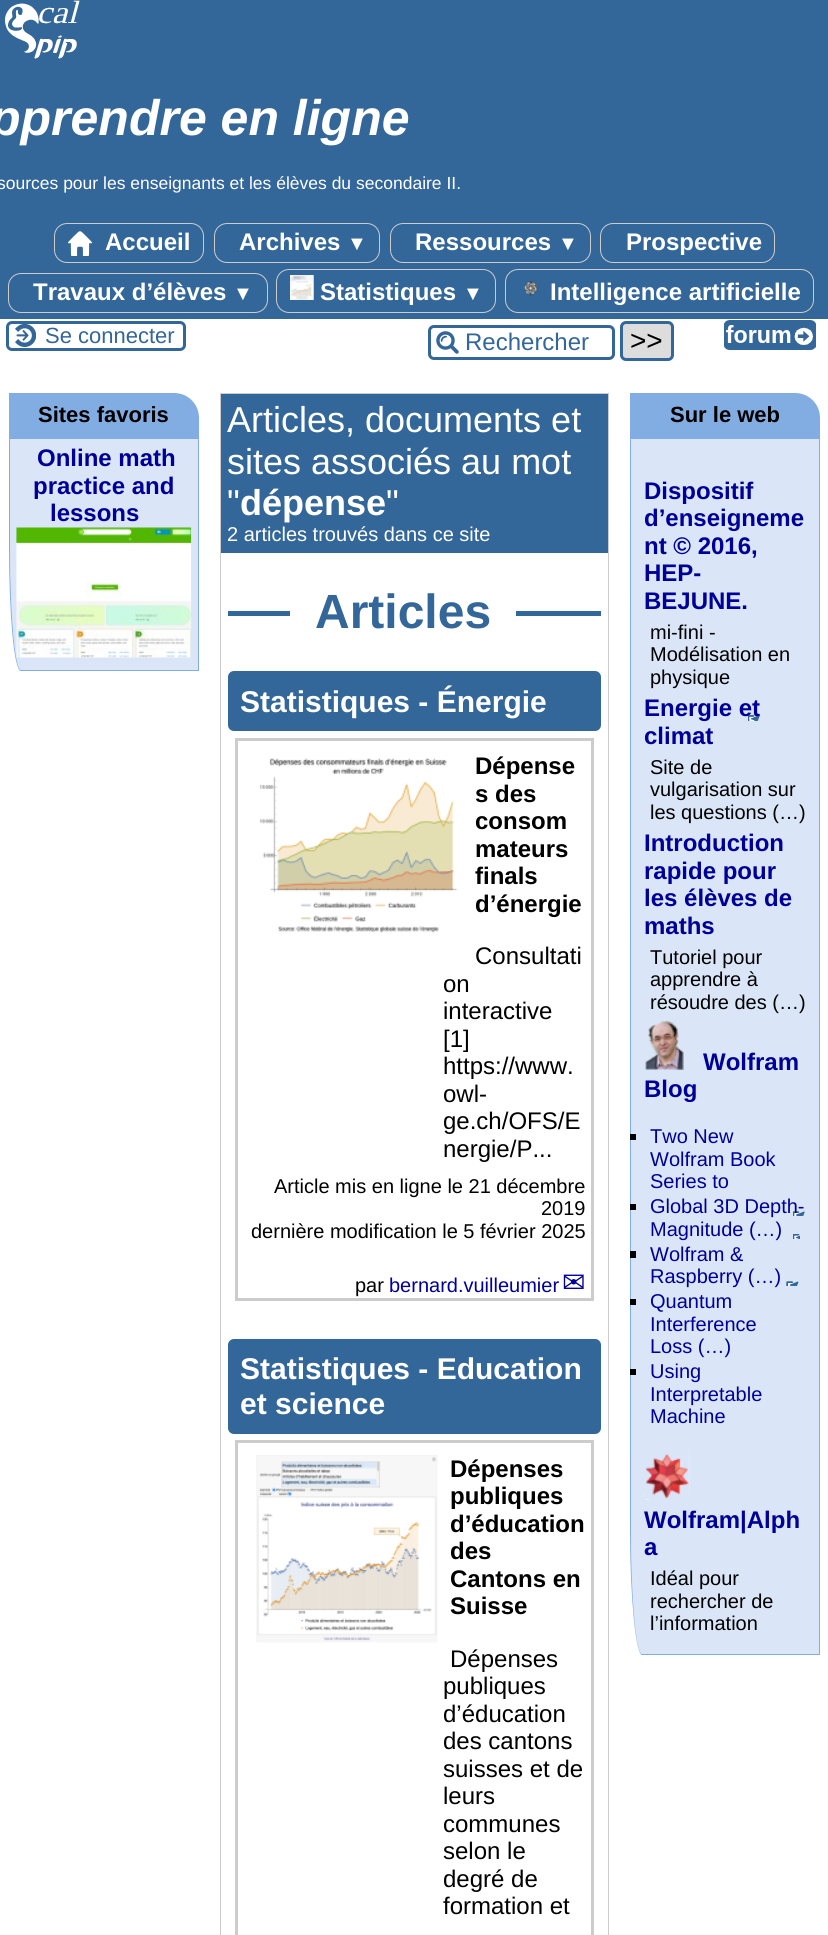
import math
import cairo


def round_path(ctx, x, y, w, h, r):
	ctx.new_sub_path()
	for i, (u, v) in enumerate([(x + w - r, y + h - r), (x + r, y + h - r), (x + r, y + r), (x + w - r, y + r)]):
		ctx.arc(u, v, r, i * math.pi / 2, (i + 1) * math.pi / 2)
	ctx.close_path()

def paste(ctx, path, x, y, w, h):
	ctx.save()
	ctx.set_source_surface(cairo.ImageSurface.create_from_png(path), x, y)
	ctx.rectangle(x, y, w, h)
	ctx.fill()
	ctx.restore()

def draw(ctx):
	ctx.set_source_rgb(1, 1, 1)
	ctx.paint()
	ctx.set_source_rgb(0.2, 0.4, 0.6)
	ctx.rectangle(0, 0, 828, 319)
	ctx.fill()
	paste(ctx, 'media/1.png', 4, 0, 76, 59)
	ctx.select_font_face('Liberation Sans', cairo.FONT_SLANT_ITALIC, cairo.FONT_WEIGHT_BOLD)
	ctx.set_font_size(50)
	ctx.set_source_rgb(1, 1, 1)
	ctx.move_to(-10, 135)
	ctx.show_text('pprendre en ligne')
	ctx.select_font_face('Liberation Sans')
	ctx.set_font_size(17.5)
	ctx.move_to(-3, 189)
	ctx.show_text('sources pour les enseignants et les élèves du secondaire II.')
	round_path(ctx, 54.5, 223.5, 149, 39, 12.5)
	ctx.set_source_rgb(0.8, 0.8, 0.8)
	ctx.set_line_width(1)
	ctx.stroke()
	paste(ctx, 'media/2.png', 68, 231, 25, 25)
	ctx.select_font_face('Liberation Sans', cairo.FONT_SLANT_NORMAL, cairo.FONT_WEIGHT_BOLD)
	ctx.set_font_size(24)
	ctx.set_source_rgb(1, 1, 1)
	ctx.move_to(105, 250)
	ctx.show_text('Accueil')
	round_path(ctx, 214.5, 223.5, 165, 39, 12.5)
	ctx.set_source_rgb(0.8, 0.8, 0.8)
	ctx.stroke()
	ctx.set_source_rgb(1, 1, 1)
	ctx.move_to(239, 250)
	ctx.show_text('Archives')
	ctx.set_font_size(20)
	ctx.move_to(347, 250)
	ctx.show_text('▼')
	round_path(ctx, 390.5, 223.5, 200, 39, 12.5)
	ctx.set_source_rgb(0.8, 0.8, 0.8)
	ctx.stroke()
	ctx.set_font_size(24)
	ctx.set_source_rgb(1, 1, 1)
	ctx.move_to(415, 250)
	ctx.show_text('Ressources')
	ctx.set_font_size(20)
	ctx.move_to(558, 250)
	ctx.show_text('▼')
	round_path(ctx, 600.5, 223.5, 174, 39, 12.5)
	ctx.set_source_rgb(0.8, 0.8, 0.8)
	ctx.stroke()
	ctx.set_font_size(24)
	ctx.set_source_rgb(1, 1, 1)
	ctx.move_to(626, 250)
	ctx.show_text('Prospective')
	round_path(ctx, 8.5, 273.5, 259, 39, 12.5)
	ctx.set_source_rgb(0.8, 0.8, 0.8)
	ctx.stroke()
	ctx.set_source_rgb(1, 1, 1)
	ctx.move_to(33, 300)
	ctx.show_text('Travaux d’élèves')
	ctx.set_font_size(20)
	ctx.move_to(233, 300)
	ctx.show_text('▼')
	round_path(ctx, 276.5, 269.5, 219, 43, 12.5)
	ctx.set_source_rgb(0.8, 0.8, 0.8)
	ctx.stroke()
	paste(ctx, 'media/3.png', 290, 275, 24, 25)
	ctx.set_font_size(24)
	ctx.set_source_rgb(1, 1, 1)
	ctx.move_to(320, 300)
	ctx.show_text('Statistiques')
	ctx.set_font_size(20)
	ctx.move_to(463, 300)
	ctx.show_text('▼')
	round_path(ctx, 505.5, 269.5, 308, 43, 12.5)
	ctx.set_source_rgb(0.8, 0.8, 0.8)
	ctx.stroke()
	paste(ctx, 'media/4.png', 523, 281, 16, 15)
	ctx.set_font_size(24)
	ctx.set_source_rgb(1, 1, 1)
	ctx.move_to(550, 300)
	ctx.show_text('Intelligence artificielle')
	paste(ctx, 'media/5.png', 15, 324, 21, 23)
	round_path(ctx, 7.5, 322.5, 177, 27, 4.5)
	ctx.set_source_rgb(0.2, 0.4, 0.6)
	ctx.set_line_width(3)
	ctx.stroke()
	ctx.select_font_face('Liberation Sans')
	ctx.set_font_size(22)
	ctx.move_to(45, 343)
	ctx.show_text('Se connecter')
	paste(ctx, 'media/6.png', 436, 331, 23, 23)
	round_path(ctx, 429.5, 326.5, 184, 32, 4.5)
	ctx.stroke()
	ctx.set_font_size(24)
	ctx.move_to(465, 350)
	ctx.show_text('Rechercher')
	ctx.set_source_rgb(0.867, 0.867, 0.867)
	round_path(ctx, 621.5, 322.5, 51, 37, 4.5)
	ctx.fill_preserve()
	ctx.set_source_rgb(0.2, 0.4, 0.6)
	ctx.stroke()
	ctx.set_font_size(28)
	ctx.set_source_rgb(0, 0, 0)
	ctx.move_to(630, 350)
	ctx.show_text('>>')
	paste(ctx, 'media/7.png', 724, 320, 92, 30)
	ctx.set_source_rgb(0.51, 0.678, 0.886)
	ctx.new_path()
	ctx.move_to(9, 393)
	ctx.line_to(174, 393)
	ctx.curve_to(188, 393, 199, 404, 199, 418)
	ctx.line_to(199, 439)
	ctx.line_to(9, 439)
	ctx.close_path()
	ctx.fill()
	ctx.select_font_face('Liberation Sans', cairo.FONT_SLANT_NORMAL, cairo.FONT_WEIGHT_BOLD)
	ctx.set_font_size(22)
	ctx.set_source_rgb(0, 0, 0)
	ctx.move_to(38, 422)
	ctx.show_text('Sites favoris')
	ctx.set_source_rgb(0.855, 0.902, 0.965)
	ctx.new_path()
	ctx.move_to(10, 439)
	ctx.line_to(198, 439)
	ctx.line_to(198, 670)
	ctx.line_to(21, 670)
	ctx.curve_to(15, 670, 10, 615, 10, 546)
	ctx.close_path()
	ctx.fill()
	ctx.set_source_rgb(0.51, 0.678, 0.886)
	ctx.set_fill_rule(cairo.FILL_RULE_EVEN_ODD)
	ctx.new_path()
	ctx.move_to(9, 439)
	ctx.line_to(199, 439)
	ctx.line_to(199, 671)
	ctx.line_to(21, 671)
	ctx.curve_to(14, 671, 9, 615, 9, 546)
	ctx.close_path()
	ctx.move_to(10, 439)
	ctx.line_to(198, 439)
	ctx.line_to(198, 670)
	ctx.line_to(21, 670)
	ctx.curve_to(15, 670, 10, 615, 10, 546)
	ctx.close_path()
	ctx.fill()
	ctx.set_font_size(24)
	ctx.set_source_rgb(0, 0, 0.6)
	for x, y, s in [
		(37, 466, 'Online math'),
		(33, 494, 'practice and'),
		(50, 521, 'lessons'),
	]:
		ctx.move_to(x, y)
		ctx.show_text(s)
	paste(ctx, 'media/8.png', 16, 527, 176, 131)
	ctx.rectangle(220.5, 393.5, 388, 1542)
	ctx.set_source_rgb(0.8, 0.8, 0.8)
	ctx.set_line_width(1)
	ctx.stroke()
	ctx.set_source_rgb(0.2, 0.4, 0.6)
	ctx.rectangle(221, 394, 387, 159)
	ctx.fill()
	ctx.select_font_face('Liberation Sans')
	ctx.set_font_size(36)
	ctx.set_source_rgb(1, 1, 1)
	for x, y, s in [
		(227, 432, 'Articles, documents et'),
		(227, 474, 'sites associés au mot'),
		(227, 515, '"'),
	]:
		ctx.move_to(x, y)
		ctx.show_text(s)
	ctx.select_font_face('Liberation Sans', cairo.FONT_SLANT_NORMAL, cairo.FONT_WEIGHT_BOLD)
	ctx.move_to(240, 515)
	ctx.show_text('dépense')
	ctx.select_font_face('Liberation Sans')
	ctx.move_to(386, 515)
	ctx.show_text('"')
	ctx.set_font_size(20)
	ctx.move_to(227, 541)
	ctx.show_text('2 articles trouvés dans ce site')
	ctx.set_source_rgb(0.2, 0.4, 0.6)
	ctx.rectangle(228, 611, 373, 5)
	ctx.fill()
	ctx.set_source_rgb(1, 1, 1)
	ctx.rectangle(290, 611, 226, 5)
	ctx.fill()
	ctx.select_font_face('Liberation Sans', cairo.FONT_SLANT_NORMAL, cairo.FONT_WEIGHT_BOLD)
	ctx.set_font_size(48)
	ctx.set_source_rgb(0.2, 0.4, 0.6)
	ctx.move_to(315, 628)
	ctx.show_text('Articles')
	round_path(ctx, 228, 671, 373, 60, 6)
	ctx.fill()
	ctx.set_font_size(30)
	ctx.set_source_rgb(1, 1, 1)
	ctx.move_to(240, 712)
	ctx.show_text('Statistiques - Énergie')
	ctx.rectangle(236.5, 739.5, 356, 560)
	ctx.set_source_rgb(0.8, 0.8, 0.8)
	ctx.set_line_width(3)
	ctx.stroke()
	paste(ctx, 'media/9.png', 259, 758, 199, 175)
	ctx.set_font_size(24)
	ctx.set_source_rgb(0, 0, 0)
	for x, y, s in [
		(475, 774, 'Dépense'),
		(475, 802, 's des'),
		(475, 829, 'consom'),
		(475, 857, 'mateurs'),
		(475, 884, 'finals'),
		(475, 912, 'd’énergie'),
	]:
		ctx.move_to(x, y)
		ctx.show_text(s)
	ctx.select_font_face('Liberation Sans')
	for x, y, s in [
		(475, 964, 'Consultati'),
		(443, 992, 'on'),
		(443, 1019, 'interactive'),
		(443, 1047, '[1]'),
		(443, 1074, 'https://www.'),
		(443, 1102, 'owl-'),
		(443, 1129, 'ge.ch/OFS/E'),
		(443, 1157, 'nergie/P...'),
	]:
		ctx.move_to(x, y)
		ctx.show_text(s)
	ctx.set_font_size(20)
	for x, y, s in [
		(274, 1193, 'Article mis en ligne le 21 décembre'),
		(541, 1215, '2019'),
		(251, 1238, 'dernière modification le 5 février 2025'),
		(355, 1292, 'par'),
	]:
		ctx.move_to(x, y)
		ctx.show_text(s)
	ctx.set_source_rgb(0, 0, 0.6)
	ctx.move_to(389, 1292)
	ctx.show_text('bernard.vuilleumier')
	ctx.select_font_face('DejaVu Sans')
	ctx.set_font_size(28)
	ctx.move_to(562, 1292)
	ctx.show_text('✉')
	ctx.set_source_rgb(0.2, 0.4, 0.6)
	round_path(ctx, 228, 1339, 373, 95, 6)
	ctx.fill()
	ctx.select_font_face('Liberation Sans', cairo.FONT_SLANT_NORMAL, cairo.FONT_WEIGHT_BOLD)
	ctx.set_font_size(30)
	ctx.set_source_rgb(1, 1, 1)
	ctx.move_to(240, 1379)
	ctx.show_text('Statistiques - Education')
	ctx.move_to(240, 1414)
	ctx.show_text('et science')
	ctx.rectangle(236.5, 1441.5, 356, 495)
	ctx.set_source_rgb(0.8, 0.8, 0.8)
	ctx.stroke()
	paste(ctx, 'media/10.png', 256, 1455, 182, 188)
	ctx.set_font_size(24)
	ctx.set_source_rgb(0, 0, 0)
	for x, y, s in [
		(450, 1477, 'Dépenses'),
		(450, 1504, 'publiques'),
		(450, 1532, 'd’éducation'),
		(450, 1559, 'des'),
		(450, 1587, 'Cantons en'),
		(450, 1614, 'Suisse'),
	]:
		ctx.move_to(x, y)
		ctx.show_text(s)
	ctx.select_font_face('Liberation Sans')
	for x, y, s in [
		(450, 1667, 'Dépenses'),
		(443, 1694, 'publiques'),
		(443, 1722, 'd’éducation'),
		(443, 1749, 'des cantons'),
		(443, 1777, 'suisses et de'),
		(443, 1804, 'leurs'),
		(443, 1832, 'communes'),
		(443, 1859, 'selon le'),
		(443, 1887, 'degré de'),
		(443, 1914, 'formation et'),
	]:
		ctx.move_to(x, y)
		ctx.show_text(s)
	ctx.set_source_rgb(0.51, 0.678, 0.886)
	ctx.new_path()
	ctx.move_to(630, 393)
	ctx.line_to(795, 393)
	ctx.curve_to(809, 393, 820, 404, 820, 418)
	ctx.line_to(820, 439)
	ctx.line_to(630, 439)
	ctx.close_path()
	ctx.fill()
	ctx.select_font_face('Liberation Sans', cairo.FONT_SLANT_NORMAL, cairo.FONT_WEIGHT_BOLD)
	ctx.set_font_size(22)
	ctx.set_source_rgb(0, 0, 0)
	ctx.move_to(670, 422)
	ctx.show_text('Sur le web')
	ctx.set_source_rgb(0.855, 0.902, 0.965)
	ctx.set_fill_rule(cairo.FILL_RULE_WINDING)
	ctx.new_path()
	ctx.move_to(631, 439)
	ctx.line_to(819, 439)
	ctx.line_to(819, 1654)
	ctx.line_to(642, 1654)
	ctx.curve_to(636, 1654, 631, 1598, 631, 1530)
	ctx.close_path()
	ctx.fill()
	ctx.set_source_rgb(0.51, 0.678, 0.886)
	ctx.set_fill_rule(cairo.FILL_RULE_EVEN_ODD)
	ctx.new_path()
	ctx.move_to(630, 439)
	ctx.line_to(820, 439)
	ctx.line_to(820, 1655)
	ctx.line_to(642, 1655)
	ctx.curve_to(636, 1655, 630, 1599, 630, 1530)
	ctx.close_path()
	ctx.move_to(631, 439)
	ctx.line_to(819, 439)
	ctx.line_to(819, 1654)
	ctx.line_to(642, 1654)
	ctx.curve_to(636, 1654, 631, 1598, 631, 1530)
	ctx.close_path()
	ctx.fill()
	ctx.set_font_size(24)
	ctx.set_source_rgb(0, 0, 0.6)
	for x, y, s in [
		(644, 499, 'Dispositif'),
		(644, 526, 'd’enseigneme'),
		(644, 554, 'nt © 2016,'),
		(644, 581, 'HEP-'),
		(644, 609, 'BEJUNE.'),
	]:
		ctx.move_to(x, y)
		ctx.show_text(s)
	ctx.select_font_face('Liberation Sans')
	ctx.set_font_size(20)
	ctx.set_source_rgb(0, 0, 0)
	for x, y, s in [
		(650, 639, 'mi-fini -'),
		(650, 661, 'Modélisation en'),
		(650, 684, 'physique'),
	]:
		ctx.move_to(x, y)
		ctx.show_text(s)
	paste(ctx, 'media/11.png', 748, 715, 12, 6)
	ctx.select_font_face('Liberation Sans', cairo.FONT_SLANT_NORMAL, cairo.FONT_WEIGHT_BOLD)
	ctx.set_font_size(24)
	ctx.set_source_rgb(0, 0, 0.6)
	ctx.move_to(644, 716)
	ctx.show_text('Energie et')
	ctx.move_to(644, 744)
	ctx.show_text('climat')
	ctx.select_font_face('Liberation Sans')
	ctx.set_font_size(20)
	ctx.set_source_rgb(0, 0, 0)
	for x, y, s in [
		(650, 774, 'Site de'),
		(650, 796, 'vulgarisation sur'),
		(650, 819, 'les questions (…)'),
	]:
		ctx.move_to(x, y)
		ctx.show_text(s)
	ctx.select_font_face('Liberation Sans', cairo.FONT_SLANT_NORMAL, cairo.FONT_WEIGHT_BOLD)
	ctx.set_font_size(24)
	ctx.set_source_rgb(0, 0, 0.6)
	for x, y, s in [
		(644, 851, 'Introduction'),
		(644, 879, 'rapide pour'),
		(644, 906, 'les élèves de'),
		(644, 934, 'maths'),
	]:
		ctx.move_to(x, y)
		ctx.show_text(s)
	ctx.select_font_face('Liberation Sans')
	ctx.set_font_size(20)
	ctx.set_source_rgb(0, 0, 0)
	for x, y, s in [
		(650, 964, 'Tutoriel pour'),
		(650, 986, 'apprendre à'),
		(650, 1009, 'résoudre des (…)'),
	]:
		ctx.move_to(x, y)
		ctx.show_text(s)
	paste(ctx, 'media/12.png', 645, 1020, 39, 50)
	ctx.select_font_face('Liberation Sans', cairo.FONT_SLANT_NORMAL, cairo.FONT_WEIGHT_BOLD)
	ctx.set_font_size(24)
	ctx.set_source_rgb(0, 0, 0.6)
	ctx.move_to(703, 1070)
	ctx.show_text('Wolfram')
	ctx.move_to(644, 1097)
	ctx.show_text('Blog')
	ctx.set_source_rgb(0, 0, 0)
	ctx.rectangle(630, 1134, 6, 6)
	ctx.fill()
	ctx.select_font_face('Liberation Sans')
	ctx.set_font_size(20)
	ctx.set_source_rgb(0, 0, 0.6)
	for x, y, s in [
		(650, 1143, 'Two New'),
		(650, 1166, 'Wolfram Book'),
		(650, 1188, 'Series to'),
	]:
		ctx.move_to(x, y)
		ctx.show_text(s)
	ctx.set_source_rgb(0, 0, 0)
	ctx.rectangle(630, 1204, 6, 6)
	ctx.fill()
	paste(ctx, 'media/13.png', 793, 1211, 12, 28)
	ctx.set_source_rgb(0, 0, 0.6)
	ctx.move_to(650, 1213)
	ctx.show_text('Global 3D Depth-')
	ctx.move_to(650, 1236)
	ctx.show_text('Magnitude (…)')
	ctx.set_source_rgb(0, 0, 0)
	ctx.rectangle(630, 1251, 6, 7)
	ctx.fill()
	ctx.set_source_rgb(0, 0, 0.6)
	ctx.move_to(650, 1261)
	ctx.show_text('Wolfram &')
	ctx.move_to(650, 1283)
	ctx.show_text('Raspberry (…)')
	paste(ctx, 'media/14.png', 786, 1281, 13, 5)
	ctx.set_source_rgb(0, 0, 0)
	ctx.rectangle(630, 1299, 6, 6)
	ctx.fill()
	ctx.set_source_rgb(0, 0, 0.6)
	for x, y, s in [
		(650, 1308, 'Quantum'),
		(650, 1331, 'Interference'),
		(650, 1353, 'Loss (…)'),
	]:
		ctx.move_to(x, y)
		ctx.show_text(s)
	ctx.set_source_rgb(0, 0, 0)
	ctx.rectangle(630, 1369, 6, 6)
	ctx.fill()
	ctx.set_source_rgb(0, 0, 0.6)
	for x, y, s in [
		(650, 1378, 'Using'),
		(650, 1401, 'Interpretable'),
		(650, 1423, 'Machine'),
	]:
		ctx.move_to(x, y)
		ctx.show_text(s)
	paste(ctx, 'media/15.png', 644, 1450, 46, 50)
	ctx.select_font_face('Liberation Sans', cairo.FONT_SLANT_NORMAL, cairo.FONT_WEIGHT_BOLD)
	ctx.set_font_size(24)
	ctx.move_to(644, 1528)
	ctx.show_text('Wolfram|Alph')
	ctx.move_to(644, 1555)
	ctx.show_text('a')
	ctx.select_font_face('Liberation Sans')
	ctx.set_font_size(20)
	ctx.set_source_rgb(0, 0, 0)
	for x, y, s in [
		(650, 1585, 'Idéal pour'),
		(650, 1608, 'rechercher de'),
		(650, 1630, 'l’information'),
	]:
		ctx.move_to(x, y)
		ctx.show_text(s)


surface = cairo.ImageSurface(cairo.FORMAT_RGB24, 828, 1935)
ctx = cairo.Context(surface)
options = cairo.FontOptions()
options.set_hint_metrics(cairo.HINT_METRICS_OFF)
options.set_hint_style(cairo.HINT_STYLE_NONE)
ctx.set_font_options(options)
ctx.set_miter_limit(4)
draw(ctx)
surface.write_to_png('image.png')
